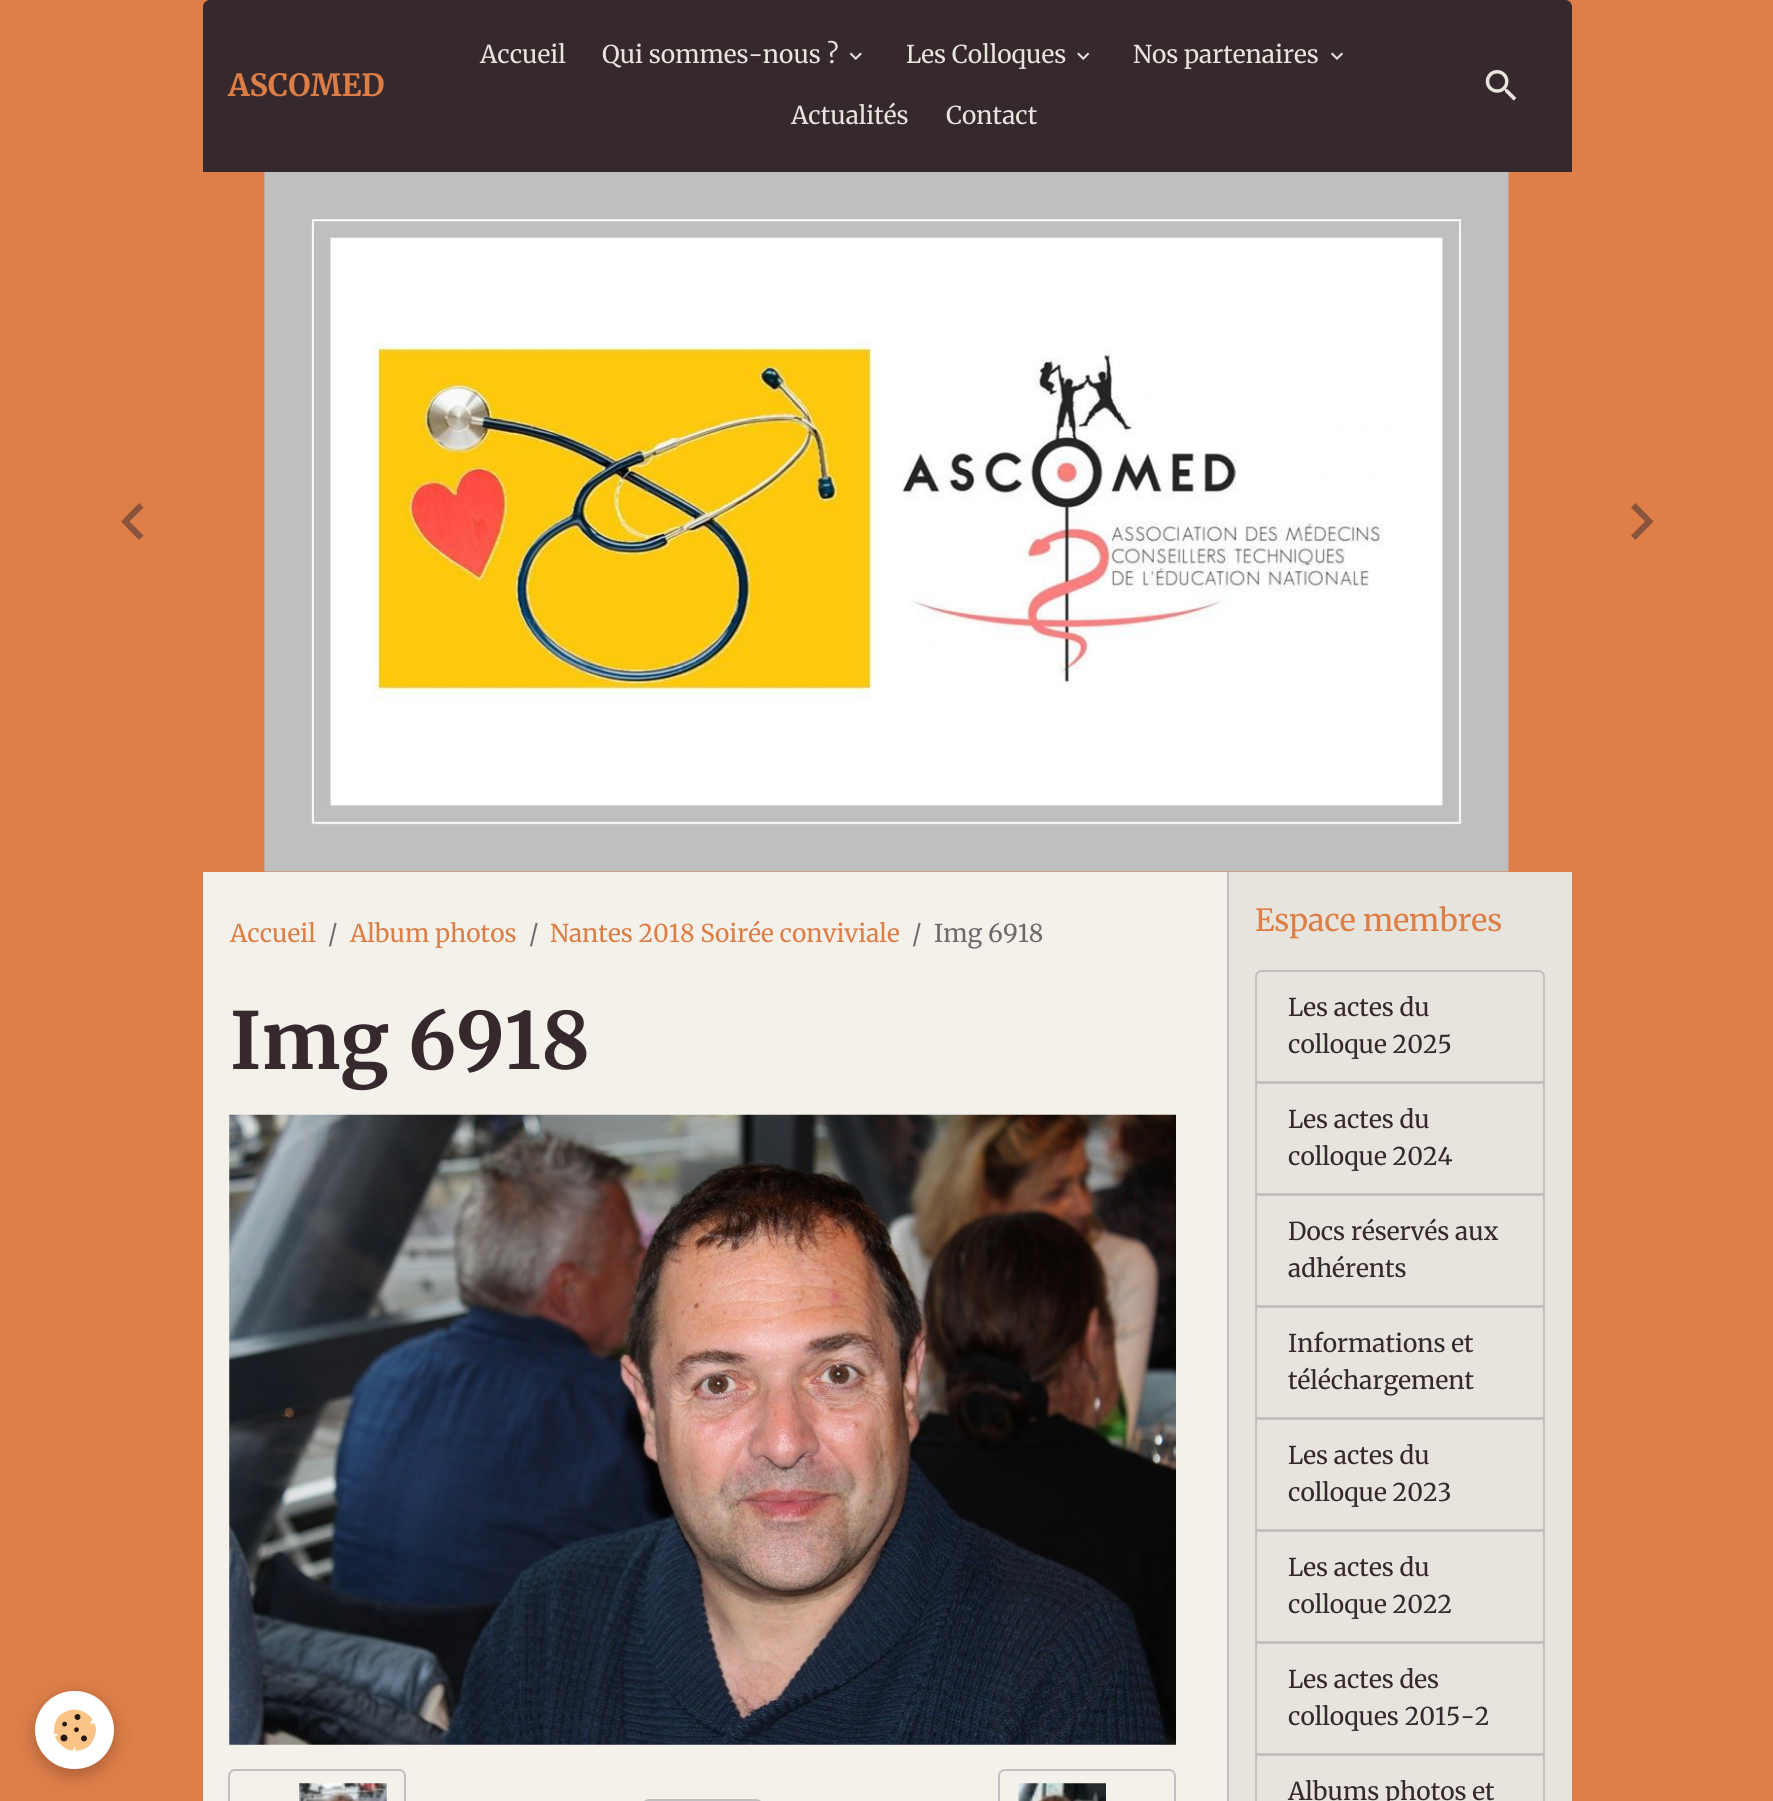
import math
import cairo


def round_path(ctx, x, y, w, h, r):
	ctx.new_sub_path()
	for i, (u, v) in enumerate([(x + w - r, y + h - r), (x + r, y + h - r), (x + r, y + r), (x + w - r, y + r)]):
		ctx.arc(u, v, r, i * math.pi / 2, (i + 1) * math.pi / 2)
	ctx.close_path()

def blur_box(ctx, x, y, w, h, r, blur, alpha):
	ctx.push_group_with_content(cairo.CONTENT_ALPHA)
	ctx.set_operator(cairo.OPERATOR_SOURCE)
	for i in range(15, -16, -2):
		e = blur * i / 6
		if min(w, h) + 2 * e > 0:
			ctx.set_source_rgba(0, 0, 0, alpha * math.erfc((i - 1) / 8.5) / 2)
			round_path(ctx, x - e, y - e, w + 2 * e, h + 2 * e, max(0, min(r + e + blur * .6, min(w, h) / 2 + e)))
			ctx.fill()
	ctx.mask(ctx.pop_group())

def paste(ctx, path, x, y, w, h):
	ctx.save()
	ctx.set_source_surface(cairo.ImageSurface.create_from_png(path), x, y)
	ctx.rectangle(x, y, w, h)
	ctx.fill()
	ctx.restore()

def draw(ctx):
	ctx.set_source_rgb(0.871, 0.494, 0.286)
	ctx.paint()
	ctx.set_source_rgb(0.208, 0.161, 0.18)
	ctx.new_path()
	ctx.move_to(210, 0)
	ctx.line_to(1565, 0)
	ctx.curve_to(1569, 0, 1572, 3, 1572, 7)
	ctx.line_to(1572, 172)
	ctx.line_to(203, 172)
	ctx.line_to(203, 7)
	ctx.curve_to(203, 3, 206, 0, 210, 0)
	ctx.close_path()
	ctx.fill()
	ctx.select_font_face('Merriweather', cairo.FONT_SLANT_NORMAL, cairo.FONT_WEIGHT_BOLD)
	ctx.set_font_size(30.5)
	ctx.set_source_rgb(0.867, 0.494, 0.278)
	ctx.move_to(228, 96)
	ctx.show_text('ASCOMED')
	ctx.select_font_face('Merriweather')
	ctx.set_font_size(24.5)
	ctx.set_source_rgb(0.91, 0.898, 0.871)
	ctx.move_to(480, 63)
	ctx.show_text('Accueil')
	ctx.move_to(602, 63)
	ctx.show_text('Qui sommes-nous ?')
	paste(ctx, 'media/1.png', 849, 52, 13, 8)
	ctx.move_to(906, 63)
	ctx.show_text('Les Colloques')
	paste(ctx, 'media/2.png', 1077, 52, 13, 8)
	ctx.move_to(1133, 63)
	ctx.show_text('Nos partenaires')
	paste(ctx, 'media/3.png', 1331, 52, 12, 8)
	ctx.move_to(791, 124)
	ctx.show_text('Actualités')
	ctx.move_to(946, 124)
	ctx.show_text('Contact')
	paste(ctx, 'media/4.png', 1485, 70, 32, 31)
	ctx.set_source_rgb(0.541, 0.329, 0.235)
	ctx.new_path()
	ctx.move_to(143.5, 507.5)
	ctx.line_to(129.5, 521.5)
	ctx.line_to(143.5, 535.5)
	ctx.line_to(139, 540)
	ctx.line_to(121, 521.5)
	ctx.line_to(139, 503)
	ctx.close_path()
	ctx.fill()
	paste(ctx, 'media/5.png', 263, 172, 1246, 700)
	ctx.new_path()
	ctx.move_to(1635.5, 503)
	ctx.line_to(1653.5, 521.5)
	ctx.line_to(1635.5, 540)
	ctx.line_to(1631, 535.5)
	ctx.line_to(1645, 521.5)
	ctx.line_to(1631, 507.5)
	ctx.close_path()
	ctx.fill()
	ctx.set_source_rgb(0, 0, 0)
	blur_box(ctx, 35, 1696, 79, 79, 39.5, 9, 0.24)
	ctx.set_source_rgb(1, 1, 1)
	round_path(ctx, 35, 1691, 79, 78, 39)
	ctx.fill()
	paste(ctx, 'media/6.png', 53, 1709, 43, 42)
	ctx.set_source_rgb(0.957, 0.945, 0.918)
	ctx.rectangle(203, 872, 1024, 929)
	ctx.fill()
	ctx.set_source_rgb(0.867, 0.494, 0.278)
	ctx.move_to(230, 942)
	ctx.show_text('Accueil')
	ctx.set_source_rgb(0.447, 0.412, 0.427)
	ctx.move_to(328, 942)
	ctx.show_text('/')
	ctx.set_source_rgb(0.867, 0.494, 0.278)
	ctx.move_to(350, 942)
	ctx.show_text('Album photos')
	ctx.set_source_rgb(0.447, 0.412, 0.427)
	ctx.move_to(529, 942)
	ctx.show_text('/')
	ctx.set_source_rgb(0.867, 0.494, 0.278)
	ctx.move_to(550, 942)
	ctx.show_text('Nantes 2018 Soirée conviviale')
	ctx.set_source_rgb(0.447, 0.412, 0.427)
	ctx.move_to(912, 942)
	ctx.show_text('/')
	ctx.move_to(934, 942)
	ctx.show_text('Img 6918')
	ctx.set_source_rgb(0.761, 0.749, 0.753)
	ctx.rectangle(1227, 872, 2, 929)
	ctx.fill()
	ctx.select_font_face('Merriweather', cairo.FONT_SLANT_NORMAL, cairo.FONT_WEIGHT_BOLD)
	ctx.set_font_size(78.5)
	ctx.set_source_rgb(0.208, 0.161, 0.18)
	ctx.move_to(230, 1069)
	ctx.show_text('Img 6918')
	paste(ctx, 'media/7.png', 229, 1114, 947, 631)
	round_path(ctx, 229, 1770, 176, 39, 6)
	ctx.set_source_rgb(0.761, 0.749, 0.753)
	ctx.stroke()
	paste(ctx, 'media/8.png', 299, 1783, 88, 18)
	round_path(ctx, 643, 1800, 119, 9, 6)
	ctx.stroke()
	round_path(ctx, 999, 1770, 176, 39, 6)
	ctx.stroke()
	paste(ctx, 'media/9.png', 1018, 1783, 88, 18)
	ctx.set_source_rgb(0.906, 0.894, 0.867)
	ctx.rectangle(1229, 872, 343, 929)
	ctx.fill()
	ctx.select_font_face('Merriweather')
	ctx.set_font_size(30.5)
	ctx.set_source_rgb(0.867, 0.494, 0.278)
	ctx.move_to(1255, 931)
	ctx.show_text('Espace membres')
	ctx.new_path()
	ctx.move_to(1262, 971)
	ctx.line_to(1538, 971)
	ctx.curve_to(1541.5, 971, 1544, 973.5, 1544, 977)
	ctx.line_to(1544, 1082)
	ctx.line_to(1256, 1082)
	ctx.line_to(1256, 977)
	ctx.curve_to(1256, 973.5, 1258.5, 971, 1262, 971)
	ctx.close_path()
	ctx.set_source_rgb(0.761, 0.749, 0.753)
	ctx.stroke()
	ctx.set_font_size(24.5)
	ctx.set_source_rgb(0.208, 0.161, 0.18)
	ctx.move_to(1288, 1016)
	ctx.show_text('Les actes du')
	ctx.move_to(1288, 1053)
	ctx.show_text('colloque 2025')
	ctx.rectangle(1256, 1083, 288, 111)
	ctx.set_source_rgb(0.761, 0.749, 0.753)
	ctx.stroke()
	ctx.set_source_rgb(0.208, 0.161, 0.18)
	ctx.move_to(1288, 1128)
	ctx.show_text('Les actes du')
	ctx.move_to(1288, 1165)
	ctx.show_text('colloque 2024')
	ctx.rectangle(1256, 1195, 288, 111)
	ctx.set_source_rgb(0.761, 0.749, 0.753)
	ctx.stroke()
	ctx.set_source_rgb(0.208, 0.161, 0.18)
	ctx.move_to(1288, 1240)
	ctx.show_text('Docs réservés aux')
	ctx.move_to(1288, 1277)
	ctx.show_text('adhérents')
	ctx.rectangle(1256, 1307, 288, 111)
	ctx.set_source_rgb(0.761, 0.749, 0.753)
	ctx.stroke()
	ctx.set_source_rgb(0.208, 0.161, 0.18)
	ctx.move_to(1288, 1352)
	ctx.show_text('Informations et')
	ctx.move_to(1288, 1389)
	ctx.show_text('téléchargement')
	ctx.rectangle(1256, 1419, 288, 111)
	ctx.set_source_rgb(0.761, 0.749, 0.753)
	ctx.stroke()
	ctx.set_source_rgb(0.208, 0.161, 0.18)
	ctx.move_to(1288, 1464)
	ctx.show_text('Les actes du')
	ctx.move_to(1288, 1501)
	ctx.show_text('colloque 2023')
	ctx.rectangle(1256, 1531, 288, 111)
	ctx.set_source_rgb(0.761, 0.749, 0.753)
	ctx.stroke()
	ctx.set_source_rgb(0.208, 0.161, 0.18)
	ctx.move_to(1288, 1576)
	ctx.show_text('Les actes du')
	ctx.move_to(1288, 1613)
	ctx.show_text('colloque 2022')
	ctx.rectangle(1256, 1643, 288, 111)
	ctx.set_source_rgb(0.761, 0.749, 0.753)
	ctx.stroke()
	ctx.set_source_rgb(0.208, 0.161, 0.18)
	ctx.move_to(1288, 1688)
	ctx.show_text('Les actes des')
	ctx.move_to(1288, 1725)
	ctx.show_text('colloques 2015-2')
	ctx.rectangle(1256, 1755, 288, 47)
	ctx.set_source_rgb(0.761, 0.749, 0.753)
	ctx.stroke()
	ctx.set_source_rgb(0.208, 0.161, 0.18)
	ctx.move_to(1288, 1800)
	ctx.show_text('Albums photos et')


surface = cairo.ImageSurface(cairo.FORMAT_RGB24, 1773, 1801)
ctx = cairo.Context(surface)
options = cairo.FontOptions()
options.set_hint_metrics(cairo.HINT_METRICS_OFF)
options.set_hint_style(cairo.HINT_STYLE_NONE)
ctx.set_font_options(options)
ctx.set_miter_limit(4)
draw(ctx)
surface.write_to_png('image.png')
